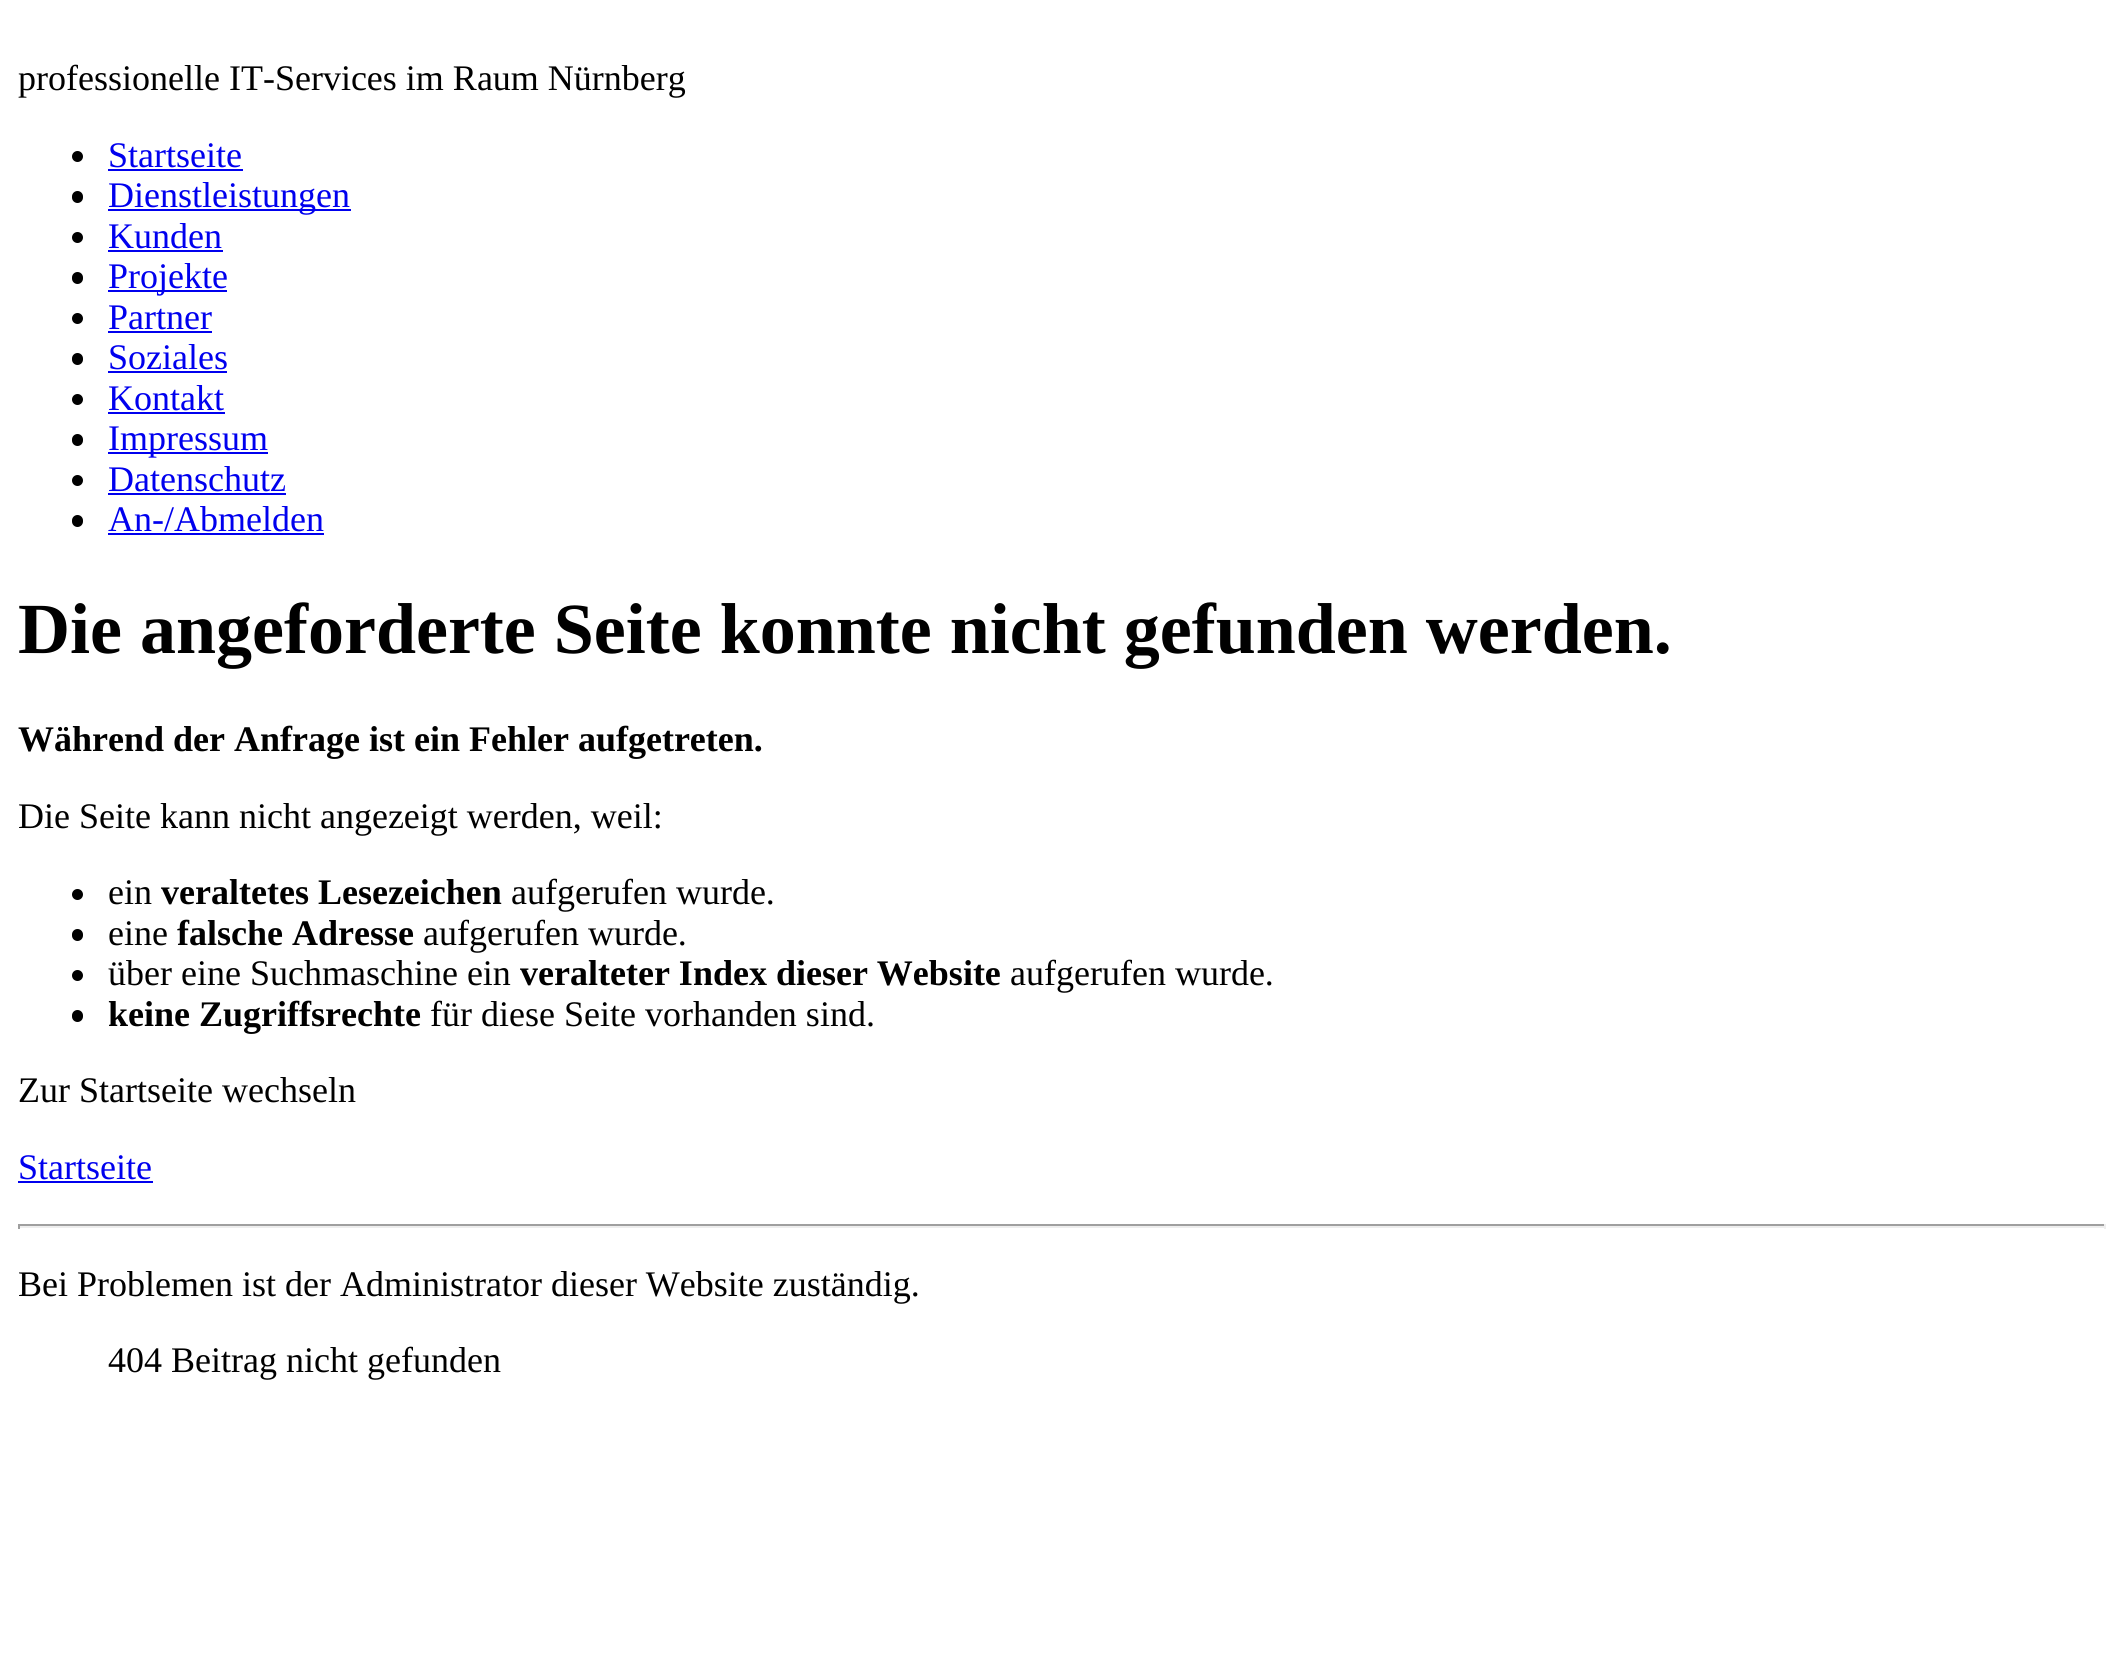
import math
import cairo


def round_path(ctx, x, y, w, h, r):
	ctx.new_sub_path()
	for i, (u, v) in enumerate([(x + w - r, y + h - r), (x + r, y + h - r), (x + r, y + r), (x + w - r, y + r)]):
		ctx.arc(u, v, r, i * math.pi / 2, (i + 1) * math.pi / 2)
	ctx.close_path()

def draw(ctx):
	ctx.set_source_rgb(1, 1, 1)
	ctx.paint()
	ctx.select_font_face('Liberation Serif')
	ctx.set_font_size(36)
	ctx.set_source_rgb(0, 0, 0)
	ctx.move_to(18, 90)
	ctx.show_text('professionelle IT-Services im Raum Nürnberg')
	ctx.new_path()
	ctx.arc(77.5, 156.5, 5.5, 0, 2 * math.pi)
	ctx.fill()
	ctx.set_source_rgb(0, 0, 0.933)
	ctx.move_to(108, 167)
	ctx.show_text('Startseite')
	ctx.rectangle(108, 169, 135, 2)
	ctx.fill()
	ctx.set_source_rgb(0, 0, 0)
	round_path(ctx, 72, 191, 11, 12, 5.5)
	ctx.fill()
	ctx.set_source_rgb(0, 0, 0.933)
	ctx.rectangle(108, 209, 243, 2)
	ctx.fill()
	ctx.move_to(108, 207)
	ctx.show_text('Dienstleistungen')
	ctx.set_source_rgb(0, 0, 0)
	ctx.new_path()
	ctx.arc(77.5, 237.5, 5.5, 0, 2 * math.pi)
	ctx.fill()
	ctx.set_source_rgb(0, 0, 0.933)
	ctx.move_to(108, 248)
	ctx.show_text('Kunden')
	ctx.rectangle(108, 250, 115, 2)
	ctx.fill()
	ctx.set_source_rgb(0, 0, 0)
	round_path(ctx, 72, 272, 11, 12, 5.5)
	ctx.fill()
	ctx.set_source_rgb(0, 0, 0.933)
	ctx.rectangle(108, 290, 119, 2)
	ctx.fill()
	ctx.move_to(108, 288)
	ctx.show_text('Projekte')
	ctx.set_source_rgb(0, 0, 0)
	ctx.new_path()
	ctx.arc(77.5, 318.5, 5.5, 0, 2 * math.pi)
	ctx.fill()
	ctx.set_source_rgb(0, 0, 0.933)
	ctx.move_to(108, 329)
	ctx.show_text('Partner')
	ctx.rectangle(108, 331, 104, 2)
	ctx.fill()
	ctx.set_source_rgb(0, 0, 0)
	round_path(ctx, 72, 353, 11, 12, 5.5)
	ctx.fill()
	ctx.set_source_rgb(0, 0, 0.933)
	ctx.move_to(108, 369)
	ctx.show_text('Soziales')
	ctx.rectangle(108, 371, 119, 2)
	ctx.fill()
	ctx.set_source_rgb(0, 0, 0)
	ctx.arc(77.5, 399.5, 5.5, 0, 2 * math.pi)
	ctx.fill()
	ctx.set_source_rgb(0, 0, 0.933)
	ctx.move_to(108, 410)
	ctx.show_text('Kontakt')
	ctx.rectangle(108, 412, 117, 2)
	ctx.fill()
	ctx.set_source_rgb(0, 0, 0)
	round_path(ctx, 72, 434, 11, 12, 5.5)
	ctx.fill()
	ctx.set_source_rgb(0, 0, 0.933)
	ctx.rectangle(108, 452, 160, 2)
	ctx.fill()
	ctx.move_to(108, 450)
	ctx.show_text('Impressum')
	ctx.set_source_rgb(0, 0, 0)
	ctx.new_path()
	ctx.arc(77.5, 480.5, 5.5, 0, 2 * math.pi)
	ctx.fill()
	ctx.set_source_rgb(0, 0, 0.933)
	ctx.move_to(108, 491)
	ctx.show_text('Datenschutz')
	ctx.rectangle(108, 493, 178, 2)
	ctx.fill()
	ctx.set_source_rgb(0, 0, 0)
	round_path(ctx, 72, 515, 11, 12, 5.5)
	ctx.fill()
	ctx.set_source_rgb(0, 0, 0.933)
	ctx.move_to(108, 531)
	ctx.show_text('An-/Abmelden')
	ctx.rectangle(108, 533, 216, 2)
	ctx.fill()
	ctx.select_font_face('Liberation Serif', cairo.FONT_SLANT_NORMAL, cairo.FONT_WEIGHT_BOLD)
	ctx.set_font_size(72)
	ctx.set_source_rgb(0, 0, 0)
	ctx.move_to(18, 653)
	ctx.show_text('Die angeforderte Seite konnte nicht gefunden werden.')
	ctx.set_font_size(36)
	ctx.move_to(18, 751)
	ctx.show_text('Während der Anfrage ist ein Fehler aufgetreten.')
	ctx.select_font_face('Liberation Serif')
	ctx.move_to(18, 828)
	ctx.show_text('Die Seite kann nicht angezeigt werden, weil:')
	ctx.new_path()
	ctx.arc(77.5, 894.5, 5.5, 0, 2 * math.pi)
	ctx.fill()
	ctx.move_to(108, 904)
	ctx.show_text('ein')
	ctx.select_font_face('Liberation Serif', cairo.FONT_SLANT_NORMAL, cairo.FONT_WEIGHT_BOLD)
	ctx.move_to(161, 904)
	ctx.show_text('veraltetes Lesezeichen')
	ctx.select_font_face('Liberation Serif')
	ctx.move_to(511, 904)
	ctx.show_text('aufgerufen wurde.')
	round_path(ctx, 72, 929, 11, 12, 5.5)
	ctx.fill()
	ctx.move_to(108, 945)
	ctx.show_text('eine')
	ctx.select_font_face('Liberation Serif', cairo.FONT_SLANT_NORMAL, cairo.FONT_WEIGHT_BOLD)
	ctx.move_to(177, 945)
	ctx.show_text('falsche Adresse')
	ctx.select_font_face('Liberation Serif')
	ctx.move_to(423, 945)
	ctx.show_text('aufgerufen wurde.')
	ctx.new_path()
	ctx.arc(77.5, 975.5, 5.5, 0, 2 * math.pi)
	ctx.fill()
	ctx.move_to(108, 985)
	ctx.show_text('über eine Suchmaschine ein')
	ctx.select_font_face('Liberation Serif', cairo.FONT_SLANT_NORMAL, cairo.FONT_WEIGHT_BOLD)
	ctx.move_to(520, 985)
	ctx.show_text('veralteter Index dieser Website')
	ctx.select_font_face('Liberation Serif')
	ctx.move_to(1010, 985)
	ctx.show_text('aufgerufen wurde.')
	round_path(ctx, 72, 1010, 11, 12, 5.5)
	ctx.fill()
	ctx.select_font_face('Liberation Serif', cairo.FONT_SLANT_NORMAL, cairo.FONT_WEIGHT_BOLD)
	ctx.move_to(108, 1026)
	ctx.show_text('keine Zugriffsrechte')
	ctx.select_font_face('Liberation Serif')
	ctx.move_to(430, 1026)
	ctx.show_text('für diese Seite vorhanden sind.')
	ctx.move_to(18, 1102)
	ctx.show_text('Zur Startseite wechseln')
	ctx.set_source_rgb(0, 0, 0.933)
	ctx.move_to(18, 1179)
	ctx.show_text('Startseite')
	ctx.rectangle(18, 1181, 135, 2)
	ctx.fill()
	ctx.set_source_rgb(0.624, 0.624, 0.624)
	ctx.rectangle(18, 1224, 2088, 2)
	ctx.fill()
	ctx.set_source_rgb(0.933, 0.933, 0.933)
	ctx.rectangle(2104, 1224, 2, 5)
	ctx.rectangle(18, 1226, 2088, 2)
	ctx.fill()
	ctx.set_source_rgb(0.624, 0.624, 0.624)
	ctx.rectangle(18, 1224, 2, 5)
	ctx.fill()
	ctx.set_source_rgb(0, 0, 0)
	ctx.move_to(18, 1296)
	ctx.show_text('Bei Problemen ist der Administrator dieser Website zuständig.')
	ctx.move_to(108, 1372)
	ctx.show_text('404 Beitrag nicht gefunden')


surface = cairo.ImageSurface(cairo.FORMAT_RGB24, 2123, 1670)
ctx = cairo.Context(surface)
options = cairo.FontOptions()
options.set_hint_metrics(cairo.HINT_METRICS_OFF)
options.set_hint_style(cairo.HINT_STYLE_NONE)
ctx.set_font_options(options)
ctx.set_miter_limit(4)
draw(ctx)
surface.write_to_png('image.png')
